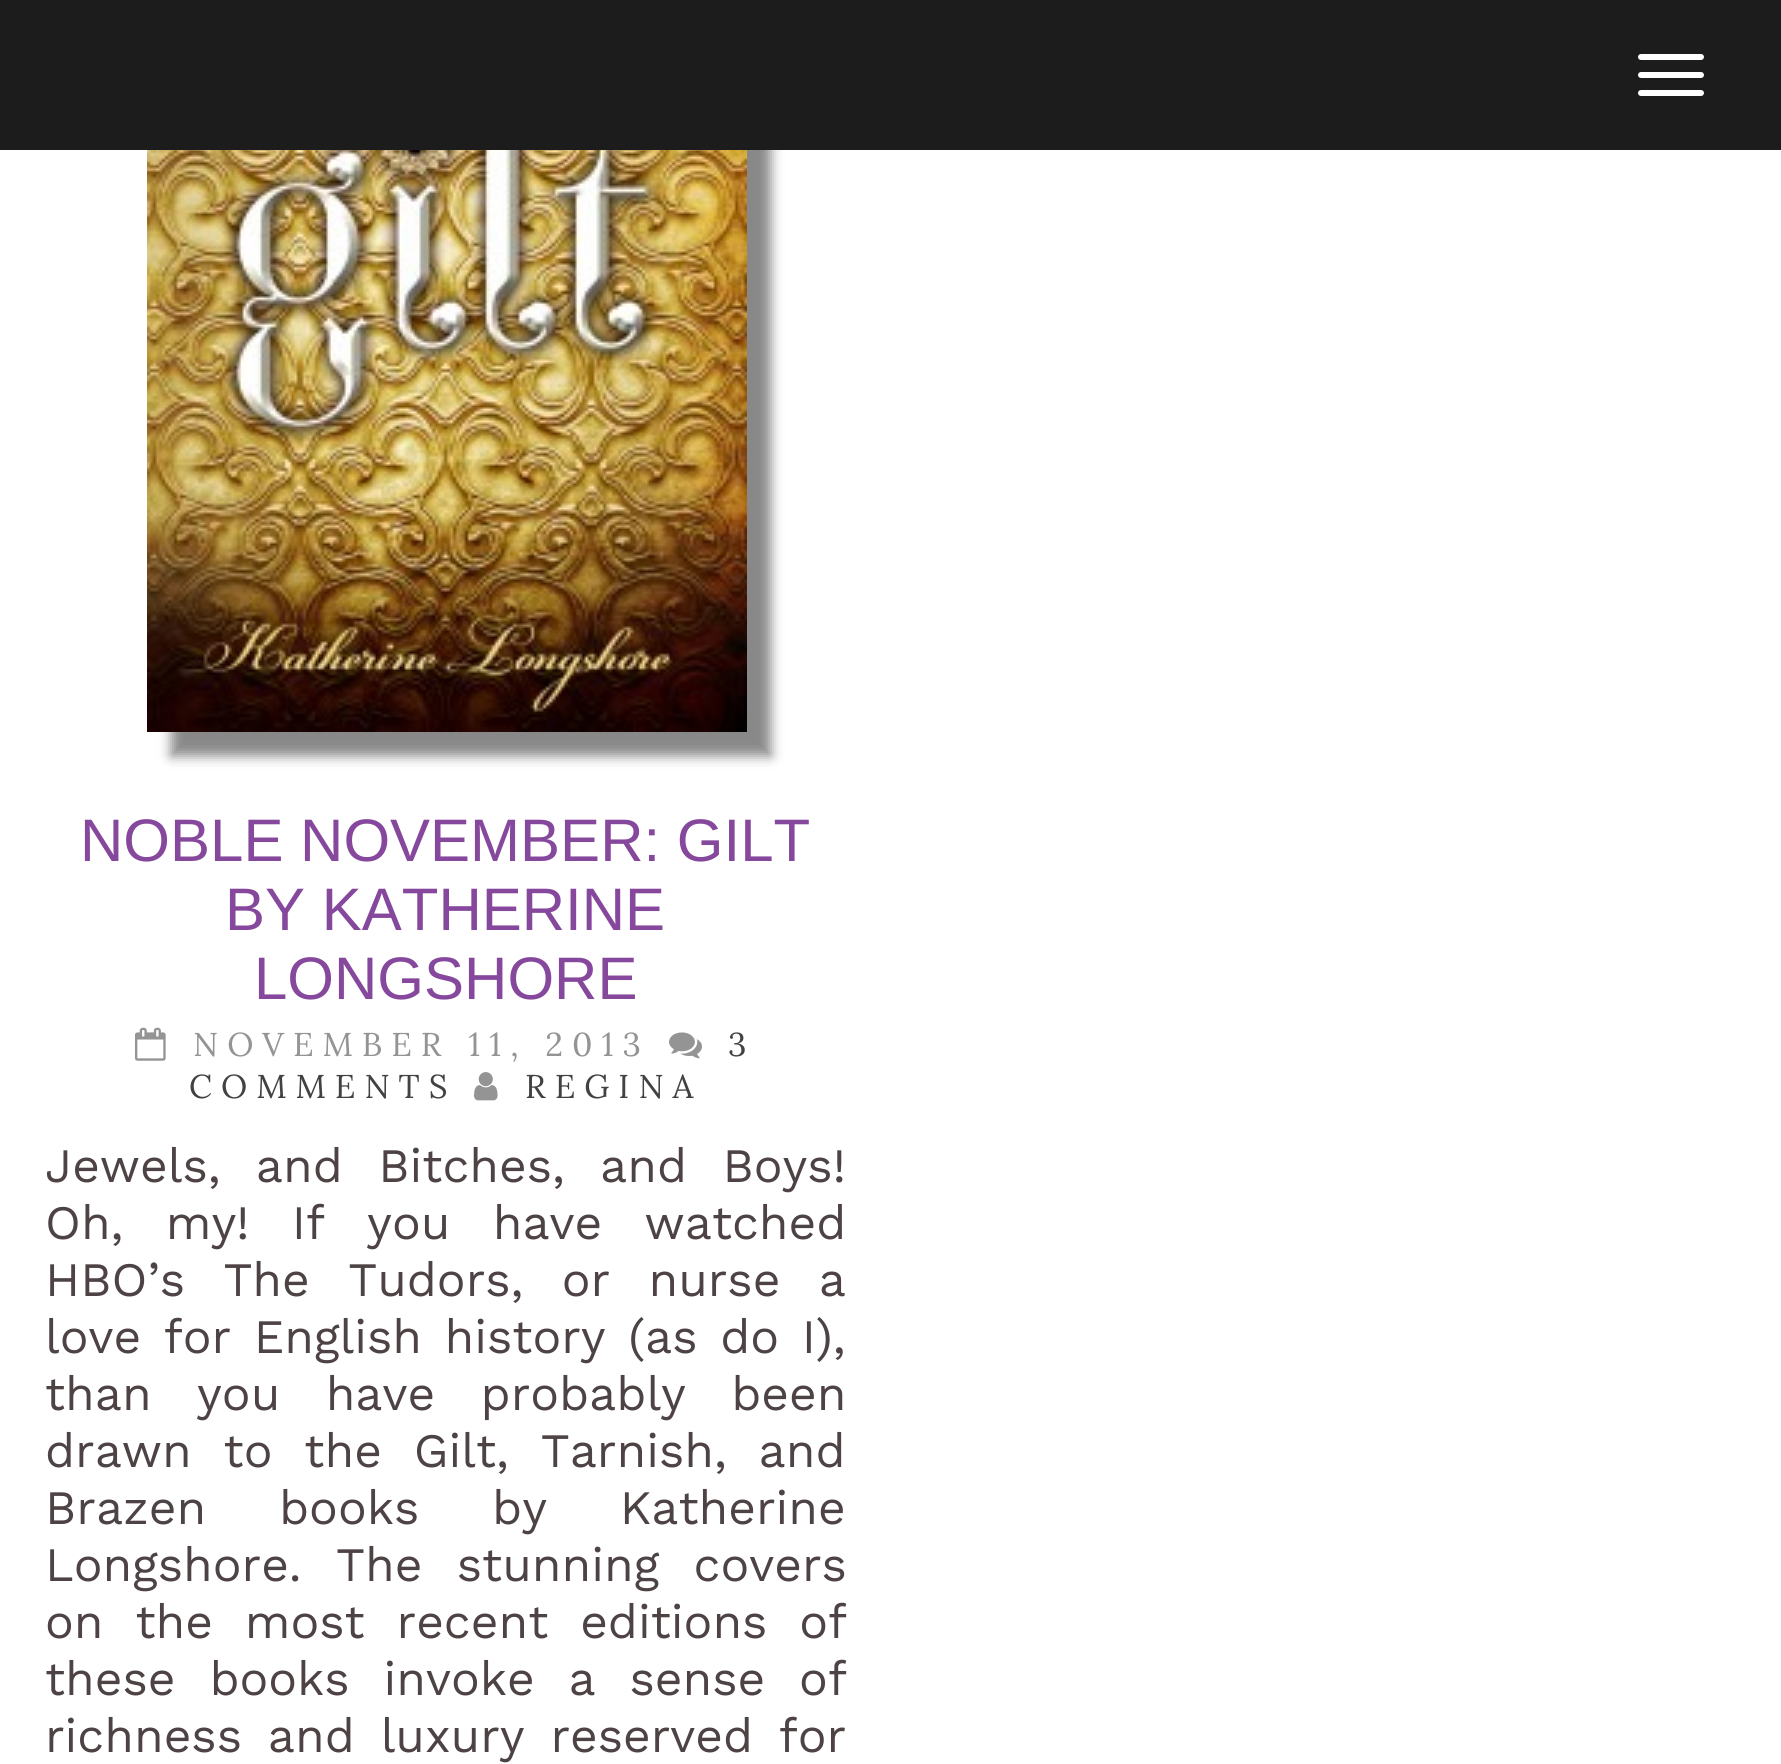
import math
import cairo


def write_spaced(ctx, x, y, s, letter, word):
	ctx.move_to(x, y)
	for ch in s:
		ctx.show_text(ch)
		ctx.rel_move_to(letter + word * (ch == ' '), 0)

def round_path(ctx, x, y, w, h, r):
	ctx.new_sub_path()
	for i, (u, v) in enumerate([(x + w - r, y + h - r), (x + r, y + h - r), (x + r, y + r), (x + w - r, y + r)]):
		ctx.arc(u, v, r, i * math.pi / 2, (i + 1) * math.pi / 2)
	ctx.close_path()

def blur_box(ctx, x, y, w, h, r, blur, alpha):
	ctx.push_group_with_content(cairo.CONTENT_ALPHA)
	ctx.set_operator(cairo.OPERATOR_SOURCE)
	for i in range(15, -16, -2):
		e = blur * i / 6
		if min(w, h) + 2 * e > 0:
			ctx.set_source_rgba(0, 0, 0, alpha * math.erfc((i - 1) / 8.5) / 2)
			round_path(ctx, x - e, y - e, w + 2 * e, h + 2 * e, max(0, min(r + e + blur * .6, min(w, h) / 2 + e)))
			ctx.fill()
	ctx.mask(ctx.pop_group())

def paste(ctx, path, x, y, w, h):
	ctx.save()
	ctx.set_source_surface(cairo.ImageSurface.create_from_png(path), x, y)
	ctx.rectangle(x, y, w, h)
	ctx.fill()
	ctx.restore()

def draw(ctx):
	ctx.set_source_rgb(1, 1, 1)
	ctx.paint()
	ctx.set_source_rgb(0.533, 0.533, 0.533)
	blur_box(ctx, 171, -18, 600, 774, 0, 6, 1)
	ctx.set_source_rgb(0.11, 0.11, 0.11)
	ctx.rectangle(0, 0, 1781, 150)
	ctx.fill()
	ctx.set_source_rgb(1, 1, 1)
	round_path(ctx, 1638, 54, 66, 6, 3)
	ctx.fill()
	round_path(ctx, 1638, 72, 66, 6, 3)
	ctx.fill()
	round_path(ctx, 1638, 90, 66, 6, 3)
	ctx.fill()
	paste(ctx, 'media/1.png', 147, 150, 600, 582)
	ctx.select_font_face('Liberation Sans')
	ctx.set_font_size(60)
	ctx.set_source_rgb(0.525, 0.282, 0.612)
	for x, y, s in [
		(80, 861, 'NOBLE NOVEMBER: GILT'),
		(225, 930, 'BY KATHERINE'),
		(254, 999, 'LONGSHORE'),
	]:
		ctx.move_to(x, y)
		ctx.show_text(s)
	paste(ctx, 'media/2.png', 135, 1027, 31, 34)
	ctx.select_font_face('Lora')
	ctx.set_font_size(33)
	ctx.set_source_rgb(0.58, 0.58, 0.58)
	write_spaced(ctx, 193, 1056, 'NOVEMBER 11, 2013', 9, 0)
	paste(ctx, 'media/3.png', 669, 1032, 33, 27)
	ctx.set_source_rgb(0.259, 0.259, 0.259)
	write_spaced(ctx, 728, 1056, '3', 9, 0)
	write_spaced(ctx, 189, 1098, 'COMMENTS', 9, 0)
	paste(ctx, 'media/4.png', 474, 1072, 24, 29)
	write_spaced(ctx, 525, 1098, 'REGINA', 9, 0)
	ctx.select_font_face('Work Sans')
	ctx.set_font_size(48)
	ctx.set_source_rgb(0.306, 0.263, 0.267)
	write_spaced(ctx, 45, 1182, 'Jewels, and Bitches, and Boys!', 0, 19)
	write_spaced(ctx, 45, 1239, 'Oh, my! If you have watched', 0, 26)
	write_spaced(ctx, 45, 1296, 'HBO’s The Tudors, or nurse a', 0, 22)
	write_spaced(ctx, 45, 1353, 'love for English history (as do I),', 0, 6.25)
	write_spaced(ctx, 45, 1410, 'than you have probably been', 0, 29)
	write_spaced(ctx, 45, 1467, 'drawn to the Gilt, Tarnish, and', 0, 15.5)
	write_spaced(ctx, 45, 1524, 'Brazen books by Katherine', 0, 56.5)
	write_spaced(ctx, 45, 1581, 'Longshore. The stunning covers', 0, 18)
	write_spaced(ctx, 45, 1638, 'on the most recent editions of', 0, 15.5)
	write_spaced(ctx, 45, 1695, 'these books invoke a sense of', 0, 17.5)
	write_spaced(ctx, 45, 1752, 'richness and luxury reserved for', 0, 9.5)


surface = cairo.ImageSurface(cairo.FORMAT_RGB24, 1781, 1764)
ctx = cairo.Context(surface)
options = cairo.FontOptions()
options.set_hint_metrics(cairo.HINT_METRICS_OFF)
options.set_hint_style(cairo.HINT_STYLE_NONE)
ctx.set_font_options(options)
ctx.set_miter_limit(4)
draw(ctx)
surface.write_to_png('image.png')
